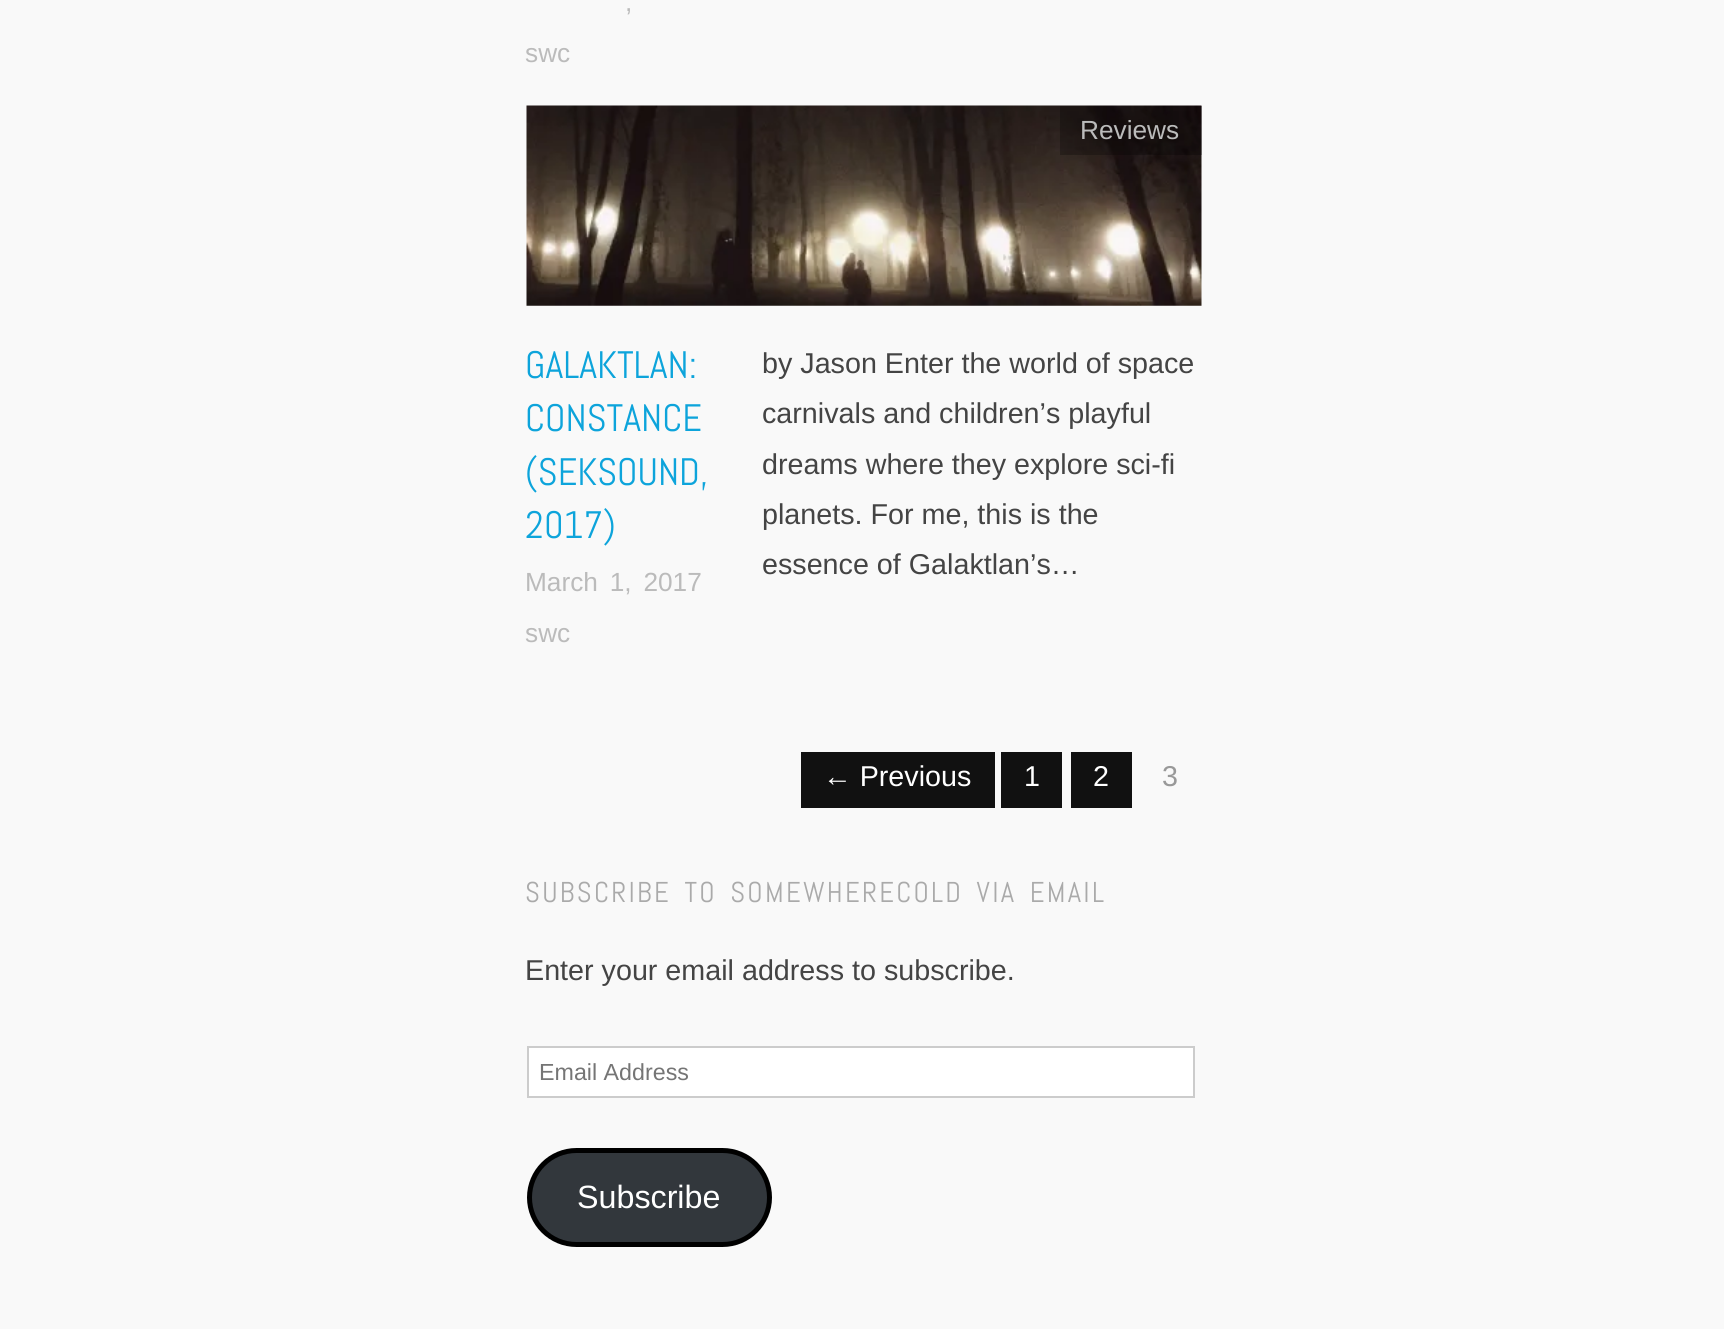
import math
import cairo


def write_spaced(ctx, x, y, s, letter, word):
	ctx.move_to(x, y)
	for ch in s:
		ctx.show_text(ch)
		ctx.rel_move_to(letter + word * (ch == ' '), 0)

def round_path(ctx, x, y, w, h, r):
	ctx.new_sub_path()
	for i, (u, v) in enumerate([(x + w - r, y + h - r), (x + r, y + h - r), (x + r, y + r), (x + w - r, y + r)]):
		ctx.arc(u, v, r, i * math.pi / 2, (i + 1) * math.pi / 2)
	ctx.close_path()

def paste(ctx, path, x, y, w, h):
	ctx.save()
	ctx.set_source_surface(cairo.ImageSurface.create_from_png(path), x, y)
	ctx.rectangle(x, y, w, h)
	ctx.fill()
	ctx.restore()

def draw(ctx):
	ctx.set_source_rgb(0.976, 0.976, 0.976)
	ctx.paint()
	ctx.select_font_face('Liberation Sans')
	ctx.set_font_size(26.25)
	ctx.set_source_rgb(0.733, 0.733, 0.733)
	write_spaced(ctx, 625, 11, ',', 0, 4.5)
	ctx.move_to(525, 62)
	ctx.show_text('swc')
	paste(ctx, 'media/1.png', 526, 105, 676, 201)
	ctx.set_source_rgba(0, 0, 0, 0.25)
	ctx.rectangle(1060, 106, 142, 49)
	ctx.fill()
	ctx.set_source_rgb(0.733, 0.733, 0.733)
	ctx.move_to(1080, 139)
	ctx.show_text('Reviews')
	ctx.select_font_face('Abel')
	ctx.set_font_size(38.25)
	ctx.set_source_rgb(0.051, 0.643, 0.859)
	for x, y, s in [
		(525, 378, 'GALAKTLAN:'),
		(525, 431, 'CONSTANCE'),
		(525, 485, '(SEKSOUND,'),
		(525, 538, '2017)'),
	]:
		ctx.move_to(x, y)
		ctx.show_text(s)
	ctx.select_font_face('Liberation Sans')
	ctx.set_font_size(26.25)
	ctx.set_source_rgb(0.733, 0.733, 0.733)
	write_spaced(ctx, 525, 591, 'March 1, 2017', 0, 4.5)
	ctx.move_to(525, 642)
	ctx.show_text('swc')
	ctx.set_font_size(28.7)
	ctx.set_source_rgb(0.267, 0.267, 0.267)
	for x, y, s in [
		(762, 373, 'by Jason Enter the world of space'),
		(762, 423, 'carnivals and children’s playful'),
		(762, 474, 'dreams where they explore sci-fi'),
		(762, 524, 'planets. For me, this is the'),
		(762, 574, 'essence of Galaktlan’s…'),
	]:
		ctx.move_to(x, y)
		ctx.show_text(s)
	ctx.set_source_rgb(0.067, 0.067, 0.067)
	ctx.rectangle(801, 752, 194, 56)
	ctx.fill()
	ctx.set_source_rgb(1, 1, 1)
	ctx.move_to(823, 786)
	ctx.show_text('← Previous')
	ctx.set_source_rgb(0.067, 0.067, 0.067)
	ctx.rectangle(1001, 752, 61, 56)
	ctx.fill()
	ctx.set_source_rgb(1, 1, 1)
	ctx.move_to(1024, 786)
	ctx.show_text('1')
	ctx.set_source_rgb(0.067, 0.067, 0.067)
	ctx.rectangle(1071, 752, 61, 56)
	ctx.fill()
	ctx.set_source_rgb(1, 1, 1)
	ctx.move_to(1093, 786)
	ctx.show_text('2')
	ctx.set_source_rgb(0.6, 0.6, 0.6)
	ctx.move_to(1162, 786)
	ctx.show_text('3')
	ctx.select_font_face('Abel')
	ctx.set_source_rgb(0.667, 0.667, 0.667)
	write_spaced(ctx, 525, 902, 'SUBSCRIBE TO SOMEWHERECOLD VIA EMAIL', 2.25, 4.5)
	ctx.select_font_face('Liberation Sans')
	ctx.set_source_rgb(0.267, 0.267, 0.267)
	ctx.move_to(525, 980)
	ctx.show_text('Enter your email address to subscribe.')
	ctx.set_source_rgb(1, 1, 1)
	ctx.rectangle(528, 1047, 666, 50)
	ctx.fill_preserve()
	ctx.set_source_rgb(0.8, 0.8, 0.8)
	ctx.stroke()
	ctx.set_font_size(23.25)
	ctx.set_source_rgb(0.459, 0.459, 0.459)
	ctx.move_to(539, 1080)
	ctx.show_text('Email Address')
	ctx.set_source_rgb(0.196, 0.216, 0.235)
	round_path(ctx, 529.5, 1150.5, 240, 94, 47)
	ctx.fill_preserve()
	ctx.set_source_rgb(0, 0, 0)
	ctx.set_line_width(5)
	ctx.stroke()
	ctx.set_font_size(32.25)
	ctx.set_source_rgb(1, 1, 1)
	ctx.move_to(577, 1208)
	ctx.show_text('Subscribe')


surface = cairo.ImageSurface(cairo.FORMAT_RGB24, 1724, 1329)
ctx = cairo.Context(surface)
options = cairo.FontOptions()
options.set_hint_metrics(cairo.HINT_METRICS_OFF)
options.set_hint_style(cairo.HINT_STYLE_NONE)
ctx.set_font_options(options)
ctx.set_miter_limit(4)
draw(ctx)
surface.write_to_png('image.png')
